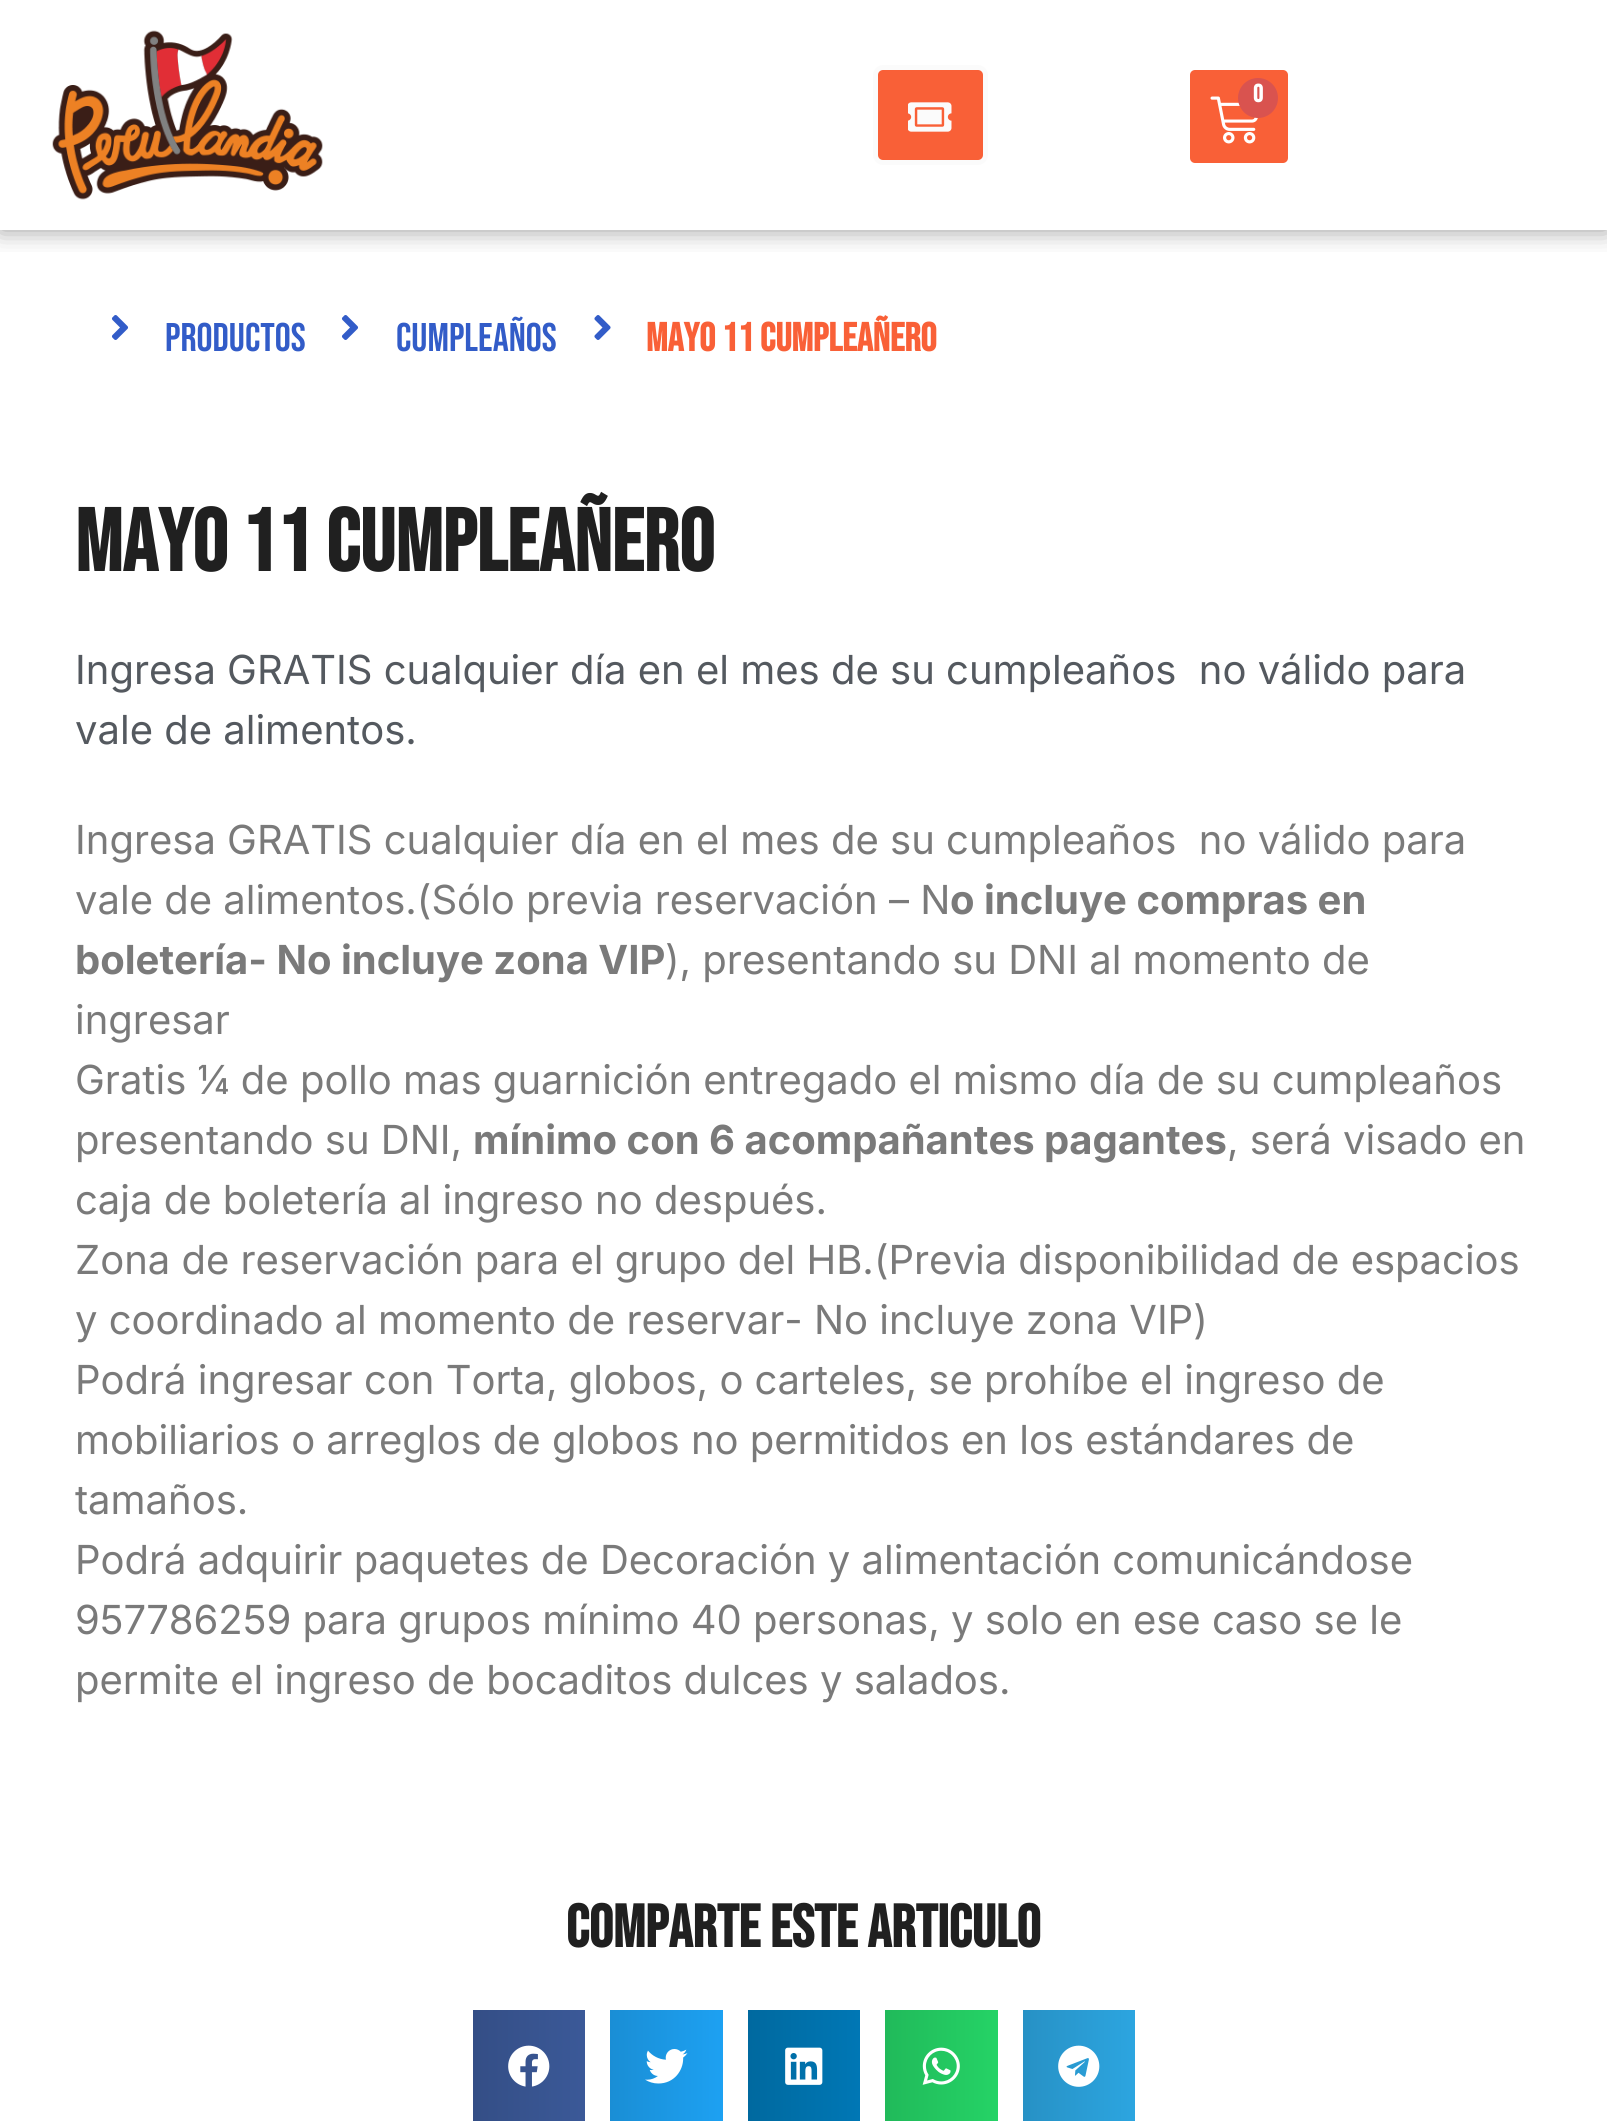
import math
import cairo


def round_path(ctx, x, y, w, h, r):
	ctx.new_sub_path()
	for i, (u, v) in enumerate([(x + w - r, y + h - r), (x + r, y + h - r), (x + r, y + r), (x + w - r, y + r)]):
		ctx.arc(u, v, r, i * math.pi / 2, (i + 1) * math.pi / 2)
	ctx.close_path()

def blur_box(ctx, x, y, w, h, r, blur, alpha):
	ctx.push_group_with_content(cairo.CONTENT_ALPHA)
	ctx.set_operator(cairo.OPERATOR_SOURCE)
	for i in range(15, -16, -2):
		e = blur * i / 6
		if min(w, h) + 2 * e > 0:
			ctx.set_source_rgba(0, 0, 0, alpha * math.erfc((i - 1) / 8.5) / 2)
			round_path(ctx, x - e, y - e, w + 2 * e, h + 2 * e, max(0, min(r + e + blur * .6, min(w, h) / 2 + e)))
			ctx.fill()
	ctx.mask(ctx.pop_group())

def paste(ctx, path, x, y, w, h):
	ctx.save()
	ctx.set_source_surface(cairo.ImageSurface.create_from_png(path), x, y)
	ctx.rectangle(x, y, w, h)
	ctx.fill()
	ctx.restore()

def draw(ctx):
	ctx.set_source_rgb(1, 1, 1)
	ctx.paint()
	ctx.save()
	ctx.rectangle(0, 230, 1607, 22)
	ctx.clip()
	ctx.set_source_rgb(0.188, 0.184, 0.184)
	blur_box(ctx, 0, 0, 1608, 230, 0, 12.5, 0.5)
	ctx.restore()
	paste(ctx, 'media/1.png', 52, 30, 271, 170)
	ctx.set_source_rgb(0.973, 0.376, 0.216)
	round_path(ctx, 875.5, 67.5, 110, 95, 7.5)
	ctx.fill_preserve()
	ctx.set_source_rgb(0.984, 0.984, 0.984)
	ctx.set_line_width(5)
	ctx.stroke()
	paste(ctx, 'media/2.png', 908, 102, 44, 30)
	ctx.set_source_rgb(0.973, 0.376, 0.216)
	round_path(ctx, 1187.5, 67.5, 103, 98, 7.5)
	ctx.fill_preserve()
	ctx.set_source_rgb(1, 1, 1)
	ctx.stroke()
	paste(ctx, 'media/3.png', 1210, 96, 48, 48)
	ctx.set_source_rgb(0.851, 0.325, 0.31)
	ctx.arc(1258, 98, 20, 0, 2 * math.pi)
	ctx.fill()
	ctx.select_font_face('Bebas Neue', cairo.FONT_SLANT_NORMAL, cairo.FONT_WEIGHT_BOLD)
	ctx.set_font_size(25)
	ctx.set_source_rgb(1, 1, 1)
	ctx.move_to(1253, 102)
	ctx.show_text('0')
	paste(ctx, 'media/4.png', 111, 315, 18, 25)
	ctx.select_font_face('Bebas Neue')
	ctx.set_font_size(40)
	ctx.set_source_rgb(0.196, 0.361, 0.784)
	ctx.move_to(165, 351)
	ctx.show_text('Productos')
	paste(ctx, 'media/4.png', 341, 315, 18, 25)
	ctx.move_to(396, 351)
	ctx.show_text('Cumpleaños')
	paste(ctx, 'media/5.png', 594, 315, 17, 25)
	ctx.select_font_face('Bebas Neue', cairo.FONT_SLANT_NORMAL, cairo.FONT_WEIGHT_BOLD)
	ctx.set_source_rgb(0.973, 0.376, 0.216)
	ctx.move_to(646, 351)
	ctx.show_text('Mayo 11 Cumpleañero')
	ctx.set_font_size(88)
	ctx.set_source_rgb(0.125, 0.125, 0.125)
	ctx.move_to(75, 571)
	ctx.show_text('Mayo 11 Cumpleañero')
	ctx.select_font_face('Inter')
	ctx.set_font_size(40)
	ctx.set_source_rgb(0.329, 0.349, 0.373)
	ctx.move_to(75, 684)
	ctx.show_text('Ingresa GRATIS cualquier día en el mes de su cumpleaños  no válido para')
	ctx.move_to(75, 744)
	ctx.show_text('vale de alimentos.')
	ctx.set_source_rgb(0.478, 0.478, 0.478)
	ctx.move_to(75, 854)
	ctx.show_text('Ingresa GRATIS cualquier día en el mes de su cumpleaños  no válido para')
	ctx.move_to(75, 914)
	ctx.show_text('vale de alimentos.(Sólo previa reservación – N')
	ctx.select_font_face('Inter', cairo.FONT_SLANT_NORMAL, cairo.FONT_WEIGHT_BOLD)
	ctx.move_to(950, 914)
	ctx.show_text('o incluye compras en')
	ctx.move_to(75, 974)
	ctx.show_text('boletería- No incluye zona VIP')
	ctx.select_font_face('Inter')
	for x, y, s in [
		(665, 974, '), presentando su DNI al momento de'),
		(75, 1034, 'ingresar'),
		(75, 1094, 'Gratis ¼ de pollo mas guarnición entregado el mismo día de su cumpleaños'),
		(75, 1154, 'presentando su DNI,'),
	]:
		ctx.move_to(x, y)
		ctx.show_text(s)
	ctx.select_font_face('Inter', cairo.FONT_SLANT_NORMAL, cairo.FONT_WEIGHT_BOLD)
	ctx.move_to(473, 1154)
	ctx.show_text('mínimo con 6 acompañantes pagantes')
	ctx.select_font_face('Inter')
	for x, y, s in [
		(1227, 1154, ', será visado en'),
		(75, 1214, 'caja de boletería al ingreso no después.'),
		(75, 1274, 'Zona de reservación para el grupo del HB.(Previa disponibilidad de espacios'),
		(75, 1334, 'y coordinado al momento de reservar- No incluye zona VIP)'),
		(75, 1394, 'Podrá ingresar con Torta, globos, o carteles, se prohíbe el ingreso de'),
		(75, 1454, 'mobiliarios o arreglos de globos no permitidos en los estándares de'),
		(75, 1514, 'tamaños.'),
		(75, 1574, 'Podrá adquirir paquetes de Decoración y alimentación comunicándose'),
		(75, 1634, '957786259 para grupos mínimo 40 personas, y solo en ese caso se le'),
		(75, 1694, 'permite el ingreso de bocaditos dulces y salados.'),
	]:
		ctx.move_to(x, y)
		ctx.show_text(s)
	ctx.select_font_face('Bebas Neue', cairo.FONT_SLANT_NORMAL, cairo.FONT_WEIGHT_BOLD)
	ctx.set_font_size(60)
	ctx.set_source_rgb(0.125, 0.125, 0.125)
	ctx.move_to(566, 1947)
	ctx.show_text('Comparte este articulo')
	gradient = cairo.LinearGradient(473, 2066, 585, 2066)
	gradient.add_color_stop_rgba(0, 0.204, 0.306, 0.525, 1)
	gradient.add_color_stop_rgba(1, 0.231, 0.349, 0.596, 1)
	ctx.set_source(gradient)
	ctx.rectangle(473, 2010, 112, 111)
	ctx.fill()
	paste(ctx, 'media/6.png', 508, 2045, 42, 42)
	gradient = cairo.LinearGradient(610, 2066, 723, 2066)
	gradient.add_color_stop_rgba(0, 0.102, 0.557, 0.835, 1)
	gradient.add_color_stop_rgba(1, 0.114, 0.631, 0.949, 1)
	ctx.set_source(gradient)
	ctx.rectangle(610, 2010, 113, 111)
	ctx.fill()
	paste(ctx, 'media/7.png', 645, 2049, 43, 35)
	gradient = cairo.LinearGradient(748, 2066, 860, 2066)
	gradient.add_color_stop_rgba(0, 0, 0.412, 0.624, 1)
	gradient.add_color_stop_rgba(1, 0, 0.467, 0.71, 1)
	ctx.set_source(gradient)
	ctx.rectangle(748, 2010, 112, 111)
	ctx.fill()
	paste(ctx, 'media/8.png', 785, 2047, 38, 38)
	gradient = cairo.LinearGradient(885, 2066, 998, 2066)
	gradient.add_color_stop_rgba(0, 0.129, 0.729, 0.353, 1)
	gradient.add_color_stop_rgba(1, 0.145, 0.827, 0.4, 1)
	ctx.set_source(gradient)
	ctx.rectangle(885, 2010, 113, 111)
	ctx.fill()
	paste(ctx, 'media/9.png', 922, 2047, 38, 38)
	gradient = cairo.LinearGradient(1023, 2066, 1135, 2066)
	gradient.add_color_stop_rgba(0, 0.153, 0.569, 0.773, 1)
	gradient.add_color_stop_rgba(1, 0.173, 0.647, 0.878, 1)
	ctx.set_source(gradient)
	ctx.rectangle(1023, 2010, 112, 111)
	ctx.fill()
	paste(ctx, 'media/10.png', 1058, 2045, 42, 42)


surface = cairo.ImageSurface(cairo.FORMAT_RGB24, 1607, 2121)
ctx = cairo.Context(surface)
options = cairo.FontOptions()
options.set_hint_metrics(cairo.HINT_METRICS_OFF)
options.set_hint_style(cairo.HINT_STYLE_NONE)
ctx.set_font_options(options)
ctx.set_miter_limit(4)
draw(ctx)
surface.write_to_png('image.png')
